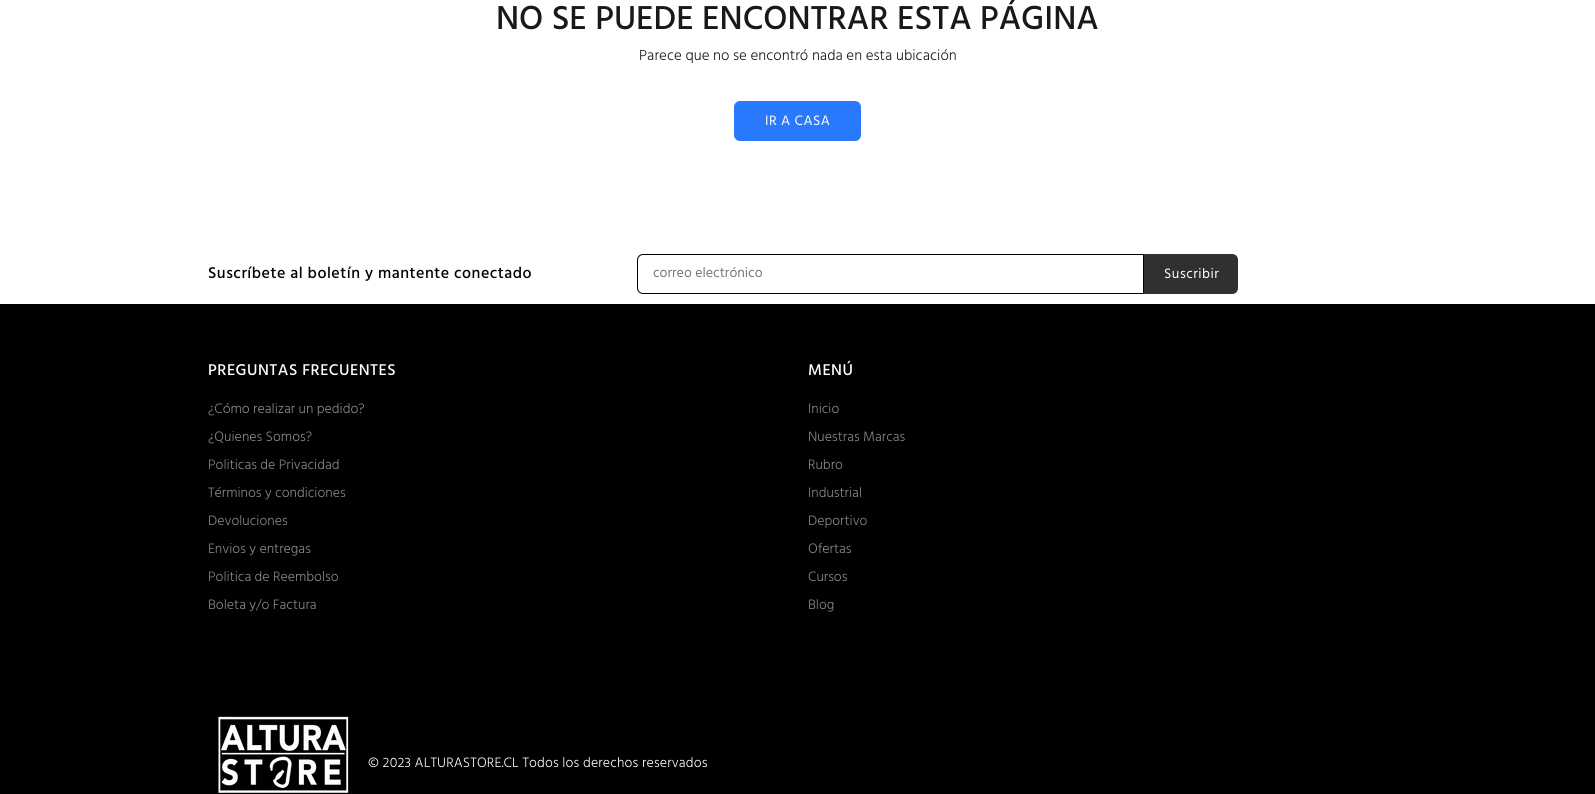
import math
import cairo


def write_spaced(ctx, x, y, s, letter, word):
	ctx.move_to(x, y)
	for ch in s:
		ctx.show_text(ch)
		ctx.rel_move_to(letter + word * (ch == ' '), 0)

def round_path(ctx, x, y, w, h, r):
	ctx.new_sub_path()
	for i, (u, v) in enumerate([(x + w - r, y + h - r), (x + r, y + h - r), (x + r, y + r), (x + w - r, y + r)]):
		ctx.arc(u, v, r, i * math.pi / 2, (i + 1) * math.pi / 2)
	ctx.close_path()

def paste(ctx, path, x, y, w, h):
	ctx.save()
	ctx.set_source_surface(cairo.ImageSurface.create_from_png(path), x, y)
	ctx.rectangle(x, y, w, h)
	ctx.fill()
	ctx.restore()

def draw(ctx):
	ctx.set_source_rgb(1, 1, 1)
	ctx.paint()
	ctx.select_font_face('Hind Medium')
	ctx.set_font_size(34)
	ctx.set_source_rgb(0.098, 0.098, 0.098)
	ctx.move_to(496, 29)
	ctx.show_text('NO SE PUEDE ENCONTRAR ESTA PÁGINA')
	ctx.select_font_face('Hind Light')
	ctx.set_font_size(15)
	ctx.move_to(639, 60)
	ctx.show_text('Parece que no se encontró nada en esta ubicación')
	ctx.set_source_rgb(0.157, 0.475, 0.996)
	round_path(ctx, 734, 101, 127, 40, 6)
	ctx.fill()
	ctx.select_font_face('Hind')
	ctx.set_font_size(14)
	ctx.set_source_rgb(1, 1, 1)
	write_spaced(ctx, 765, 125, 'IR A CASA', 0.5, 0)
	ctx.set_source_rgb(0, 0, 0)
	ctx.rectangle(0, 304, 1595, 490)
	ctx.fill()
	ctx.select_font_face('Hind Medium')
	ctx.set_font_size(16)
	write_spaced(ctx, 208, 278, 'Suscríbete al boletín y mantente conectado', 0.5, 0)
	ctx.new_path()
	ctx.move_to(643, 254.5)
	ctx.line_to(1143.5, 254.5)
	ctx.line_to(1143.5, 293.5)
	ctx.line_to(643, 293.5)
	ctx.curve_to(640, 293.5, 637.5, 291, 637.5, 288)
	ctx.line_to(637.5, 260)
	ctx.curve_to(637.5, 257, 640, 254.5, 643, 254.5)
	ctx.close_path()
	ctx.set_line_width(1)
	ctx.stroke()
	ctx.select_font_face('Hind')
	ctx.set_font_size(14)
	ctx.set_source_rgb(0.467, 0.467, 0.467)
	ctx.move_to(653, 277)
	ctx.show_text('correo electrónico')
	ctx.set_source_rgb(0.188, 0.188, 0.188)
	ctx.new_path()
	ctx.move_to(1144, 254)
	ctx.line_to(1232, 254)
	ctx.curve_to(1235.5, 254, 1238, 256.5, 1238, 260)
	ctx.line_to(1238, 288)
	ctx.curve_to(1238, 291.5, 1235.5, 294, 1232, 294)
	ctx.line_to(1144, 294)
	ctx.close_path()
	ctx.fill()
	ctx.set_source_rgb(1, 1, 1)
	write_spaced(ctx, 1164, 278, 'Suscribir', 0.5, 0)
	ctx.select_font_face('Hind Medium')
	ctx.set_font_size(16)
	write_spaced(ctx, 208, 375, 'PREGUNTAS FRECUENTES', 0.5, 0)
	ctx.select_font_face('Hind Light')
	ctx.set_font_size(14)
	ctx.set_source_rgb(0.533, 0.533, 0.533)
	for x, y, s in [
		(208, 413, '¿Cómo realizar un pedido?'),
		(208, 441, '¿Quienes Somos?'),
		(208, 469, 'Politicas de Privacidad'),
		(208, 497, 'Términos y condiciones'),
		(208, 525, 'Devoluciones'),
		(208, 553, 'Envios y entregas'),
		(208, 581, 'Politica de Reembolso'),
		(208, 609, 'Boleta y/o Factura'),
	]:
		ctx.move_to(x, y)
		ctx.show_text(s)
	ctx.select_font_face('Hind Medium')
	ctx.set_font_size(16)
	ctx.set_source_rgb(1, 1, 1)
	write_spaced(ctx, 808, 375, 'MENÚ', 0.5, 0)
	ctx.select_font_face('Hind Light')
	ctx.set_font_size(14)
	ctx.set_source_rgb(0.533, 0.533, 0.533)
	for x, y, s in [
		(808, 413, 'Inicio'),
		(808, 441, 'Nuestras Marcas'),
		(808, 469, 'Rubro'),
		(808, 497, 'Industrial'),
		(808, 525, 'Deportivo'),
		(808, 553, 'Ofertas'),
		(808, 581, 'Cursos'),
		(808, 609, 'Blog'),
	]:
		ctx.move_to(x, y)
		ctx.show_text(s)
	paste(ctx, 'media/1.png', 218, 716, 131, 77)
	ctx.set_source_rgb(1, 1, 1)
	write_spaced(ctx, 368, 767, '© 2023 ALTURASTORE.CL Todos los derechos reservados', 0.15, 0)


surface = cairo.ImageSurface(cairo.FORMAT_RGB24, 1595, 794)
ctx = cairo.Context(surface)
options = cairo.FontOptions()
options.set_hint_metrics(cairo.HINT_METRICS_OFF)
options.set_hint_style(cairo.HINT_STYLE_NONE)
ctx.set_font_options(options)
ctx.set_miter_limit(4)
draw(ctx)
surface.write_to_png('image.png')
